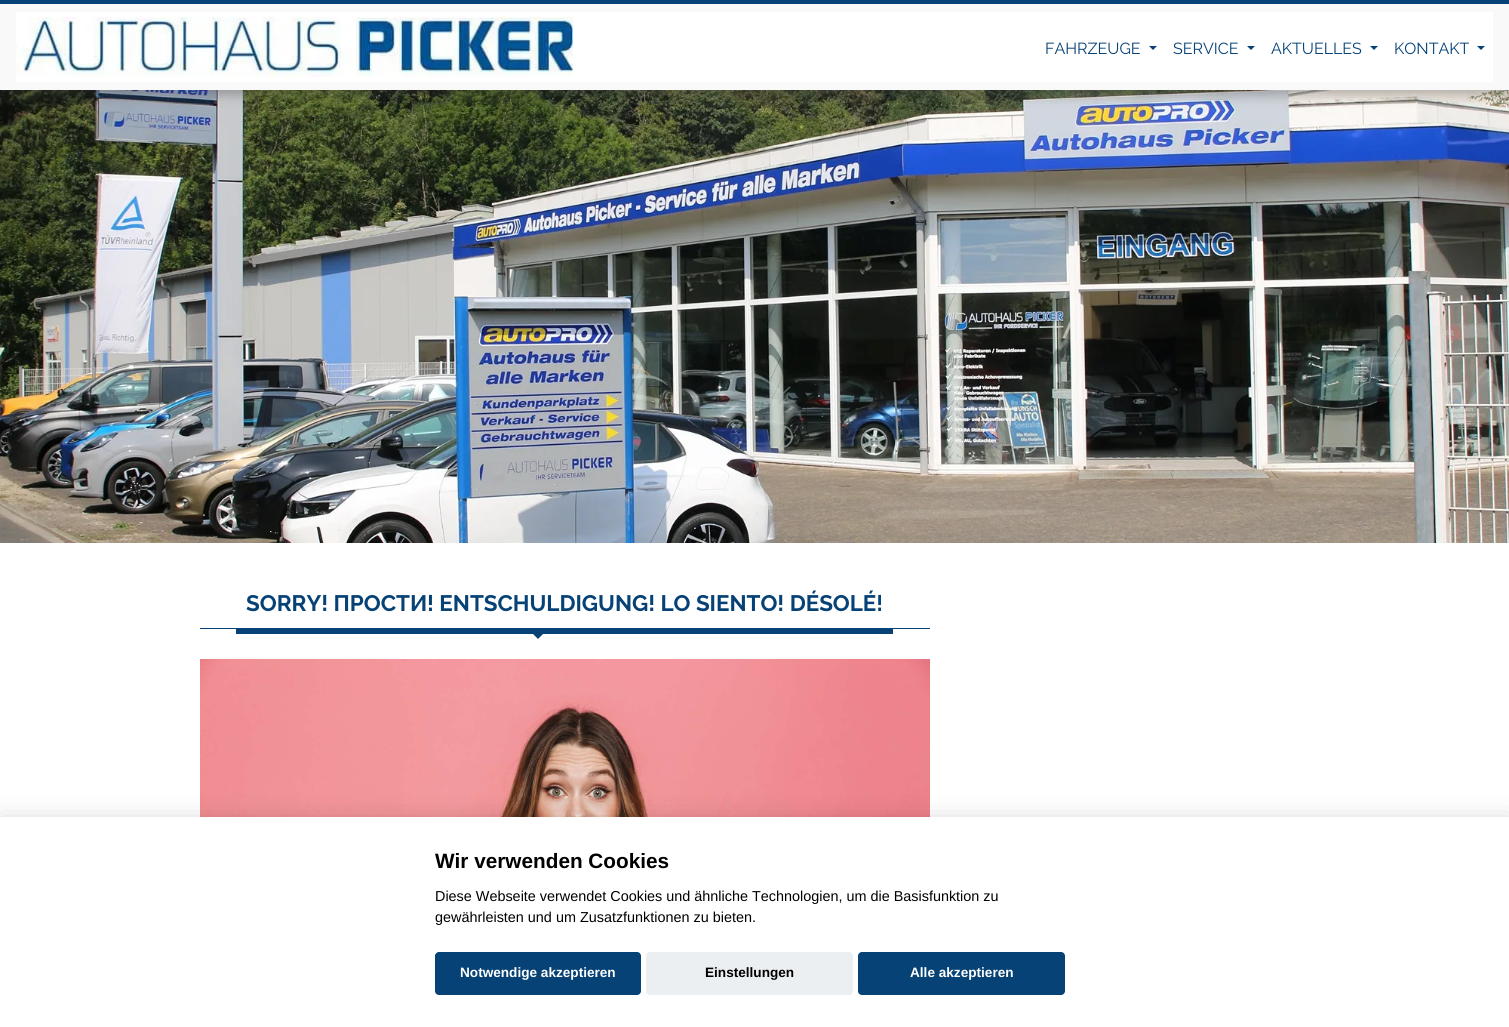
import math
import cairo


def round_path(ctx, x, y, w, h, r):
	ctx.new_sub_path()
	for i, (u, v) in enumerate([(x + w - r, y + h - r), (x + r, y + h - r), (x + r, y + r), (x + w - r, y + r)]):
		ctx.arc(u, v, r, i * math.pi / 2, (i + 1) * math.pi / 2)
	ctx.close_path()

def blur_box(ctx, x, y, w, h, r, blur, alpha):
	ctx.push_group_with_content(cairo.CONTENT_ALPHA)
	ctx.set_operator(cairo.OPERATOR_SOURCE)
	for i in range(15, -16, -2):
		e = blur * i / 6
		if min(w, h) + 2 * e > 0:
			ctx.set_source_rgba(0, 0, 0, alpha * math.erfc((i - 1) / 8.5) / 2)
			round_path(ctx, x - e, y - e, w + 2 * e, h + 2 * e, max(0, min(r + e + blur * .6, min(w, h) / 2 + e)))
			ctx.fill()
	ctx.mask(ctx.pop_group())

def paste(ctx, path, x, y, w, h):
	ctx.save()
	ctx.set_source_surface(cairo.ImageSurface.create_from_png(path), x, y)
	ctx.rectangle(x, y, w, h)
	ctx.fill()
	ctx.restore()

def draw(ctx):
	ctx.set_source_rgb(1, 1, 1)
	ctx.paint()
	paste(ctx, 'media/2.png', 0, 90, 1509, 453)
	ctx.set_source_rgb(0.196, 0.196, 0.196)
	blur_box(ctx, 0, 5, 1509, 90, 0, 6, 0.35)
	ctx.set_source_rgb(0.973, 0.976, 0.98)
	ctx.rectangle(0, 4, 1509, 86)
	ctx.fill()
	ctx.set_source_rgb(0.024, 0.259, 0.459)
	ctx.rectangle(0, 0, 1509, 4)
	ctx.fill()
	ctx.set_source_rgb(1, 1, 1)
	ctx.rectangle(16, 12, 1477, 70)
	ctx.fill()
	paste(ctx, 'media/1.png', 16, 17, 557, 60)
	ctx.select_font_face('Raleway')
	ctx.set_font_size(16)
	ctx.set_source_rgb(0.024, 0.259, 0.459)
	ctx.move_to(1045, 54)
	ctx.show_text('FAHRZEUGE')
	ctx.new_path()
	ctx.move_to(1149, 46)
	ctx.line_to(1157, 46)
	ctx.line_to(1153, 50)
	ctx.close_path()
	ctx.fill()
	ctx.move_to(1173, 54)
	ctx.show_text('SERVICE')
	ctx.new_path()
	ctx.move_to(1247, 46)
	ctx.line_to(1255, 46)
	ctx.line_to(1251, 50)
	ctx.close_path()
	ctx.fill()
	ctx.move_to(1271, 54)
	ctx.show_text('AKTUELLES')
	ctx.new_path()
	ctx.move_to(1370, 46)
	ctx.line_to(1378, 46)
	ctx.line_to(1374, 50)
	ctx.close_path()
	ctx.fill()
	ctx.move_to(1394, 54)
	ctx.show_text('KONTAKT')
	ctx.new_path()
	ctx.move_to(1477, 46)
	ctx.line_to(1485, 46)
	ctx.line_to(1481, 50)
	ctx.close_path()
	ctx.fill()
	ctx.rectangle(200, 628, 730, 1)
	ctx.fill()
	ctx.rectangle(236, 629, 657, 5)
	ctx.fill()
	ctx.select_font_face('Raleway', cairo.FONT_SLANT_NORMAL, cairo.FONT_WEIGHT_BOLD)
	ctx.set_font_size(22.4)
	ctx.move_to(246, 611)
	ctx.show_text('SORRY! ПРОСТИ! ENTSCHULDIGUNG! LO SIENTO! DÉSOLÉ!')
	ctx.new_path()
	ctx.move_to(532, 633)
	ctx.line_to(544, 633)
	ctx.line_to(538, 639)
	ctx.close_path()
	ctx.fill()
	paste(ctx, 'media/3.png', 200, 659, 730, 158)
	ctx.set_source_rgb(0.008, 0.008, 0.012)
	blur_box(ctx, 0, 827, 1509, 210, 0, 15, 0.28)
	ctx.set_source_rgb(1, 1, 1)
	ctx.rectangle(0, 817, 1509, 210)
	ctx.fill()
	ctx.select_font_face('Liberation Sans', cairo.FONT_SLANT_NORMAL, cairo.FONT_WEIGHT_BOLD)
	ctx.set_font_size(20.75)
	ctx.set_source_rgb(0, 0, 0)
	ctx.move_to(435, 868)
	ctx.show_text('Wir verwenden Cookies')
	ctx.select_font_face('Liberation Sans')
	ctx.set_font_size(14.4)
	ctx.move_to(435, 901)
	ctx.show_text('Diese Webseite verwendet Cookies und ähnliche Technologien, um die Basisfunktion zu')
	ctx.move_to(435, 922)
	ctx.show_text('gewährleisten und um Zusatzfunktionen zu bieten.')
	ctx.set_source_rgb(0.024, 0.259, 0.459)
	round_path(ctx, 435, 952, 206, 43, 4)
	ctx.fill()
	ctx.select_font_face('Liberation Sans', cairo.FONT_SLANT_NORMAL, cairo.FONT_WEIGHT_BOLD)
	ctx.set_font_size(13.6)
	ctx.set_source_rgb(1, 1, 1)
	ctx.move_to(460, 977)
	ctx.show_text('Notwendige akzeptieren')
	ctx.set_source_rgb(0.918, 0.937, 0.949)
	round_path(ctx, 646, 952, 207, 43, 4)
	ctx.fill()
	ctx.set_source_rgb(0, 0, 0)
	ctx.move_to(705, 977)
	ctx.show_text('Einstellungen')
	ctx.set_source_rgb(0.024, 0.259, 0.459)
	round_path(ctx, 858, 952, 207, 43, 4)
	ctx.fill()
	ctx.set_source_rgb(1, 1, 1)
	ctx.move_to(910, 977)
	ctx.show_text('Alle akzeptieren')


surface = cairo.ImageSurface(cairo.FORMAT_RGB24, 1509, 1027)
ctx = cairo.Context(surface)
options = cairo.FontOptions()
options.set_hint_metrics(cairo.HINT_METRICS_OFF)
options.set_hint_style(cairo.HINT_STYLE_NONE)
ctx.set_font_options(options)
ctx.set_miter_limit(4)
draw(ctx)
surface.write_to_png('image.png')
